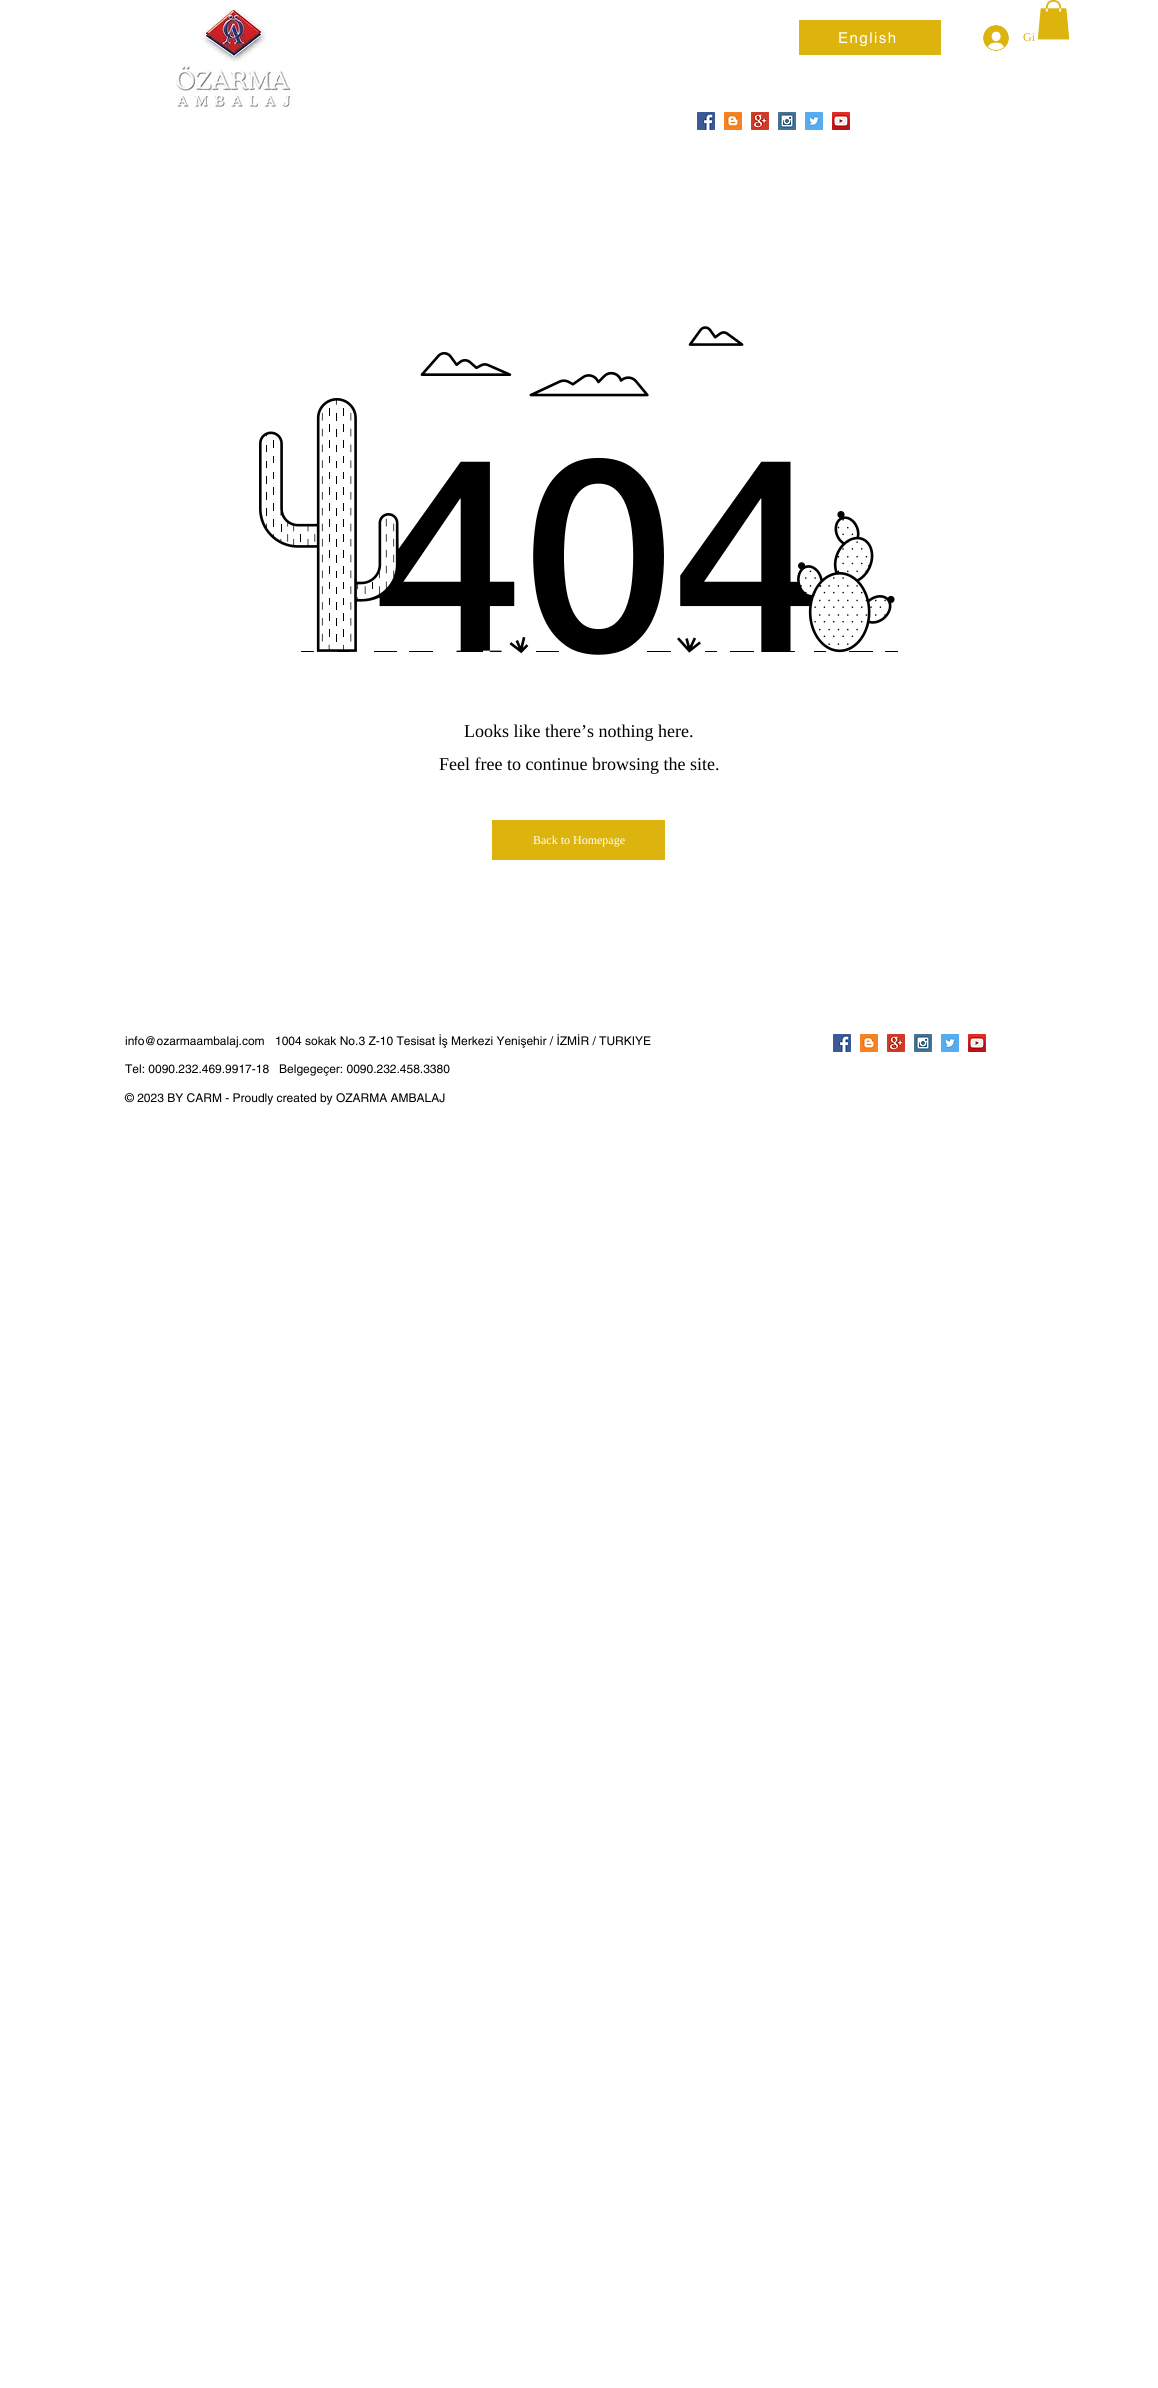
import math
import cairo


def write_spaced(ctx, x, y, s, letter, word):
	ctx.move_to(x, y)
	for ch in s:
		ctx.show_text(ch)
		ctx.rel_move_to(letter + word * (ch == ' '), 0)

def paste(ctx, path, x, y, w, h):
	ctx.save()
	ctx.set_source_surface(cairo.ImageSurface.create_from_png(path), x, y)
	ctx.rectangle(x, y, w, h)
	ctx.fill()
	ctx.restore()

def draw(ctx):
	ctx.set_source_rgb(1, 1, 1)
	ctx.paint()
	paste(ctx, 'media/1.png', 176, 8, 117, 100)
	ctx.set_source_rgb(0.867, 0.706, 0.051)
	ctx.rectangle(799, 20, 142, 35)
	ctx.fill()
	ctx.save()
	ctx.rectangle(838, 29, 60, 17)
	ctx.clip()
	ctx.select_font_face('helvetica')
	ctx.set_font_size(15)
	ctx.set_source_rgb(1, 1, 1)
	write_spaced(ctx, 838, 43, 'English', 1.5, 0)
	ctx.restore()
	paste(ctx, 'media/2.png', 983, 25, 26, 26)
	ctx.select_font_face('Liberation Serif')
	ctx.set_font_size(12)
	ctx.move_to(1023, 41)
	ctx.show_text('Gi')
	paste(ctx, 'media/3.png', 1037, 0, 33, 40)
	paste(ctx, 'media/4.png', 697, 112, 18, 18)
	paste(ctx, 'media/5.png', 724, 112, 18, 18)
	paste(ctx, 'media/6.png', 751, 112, 18, 18)
	paste(ctx, 'media/7.png', 778, 112, 18, 18)
	paste(ctx, 'media/8.png', 805, 112, 18, 18)
	paste(ctx, 'media/9.png', 832, 112, 18, 18)
	paste(ctx, 'media/10.png', 259, 326, 639, 329)
	ctx.set_font_size(18)
	ctx.set_source_rgb(0, 0, 0)
	ctx.move_to(464, 737)
	ctx.show_text('Looks like there’s nothing here.')
	ctx.move_to(439, 770)
	ctx.show_text('Feel free to continue browsing the site.')
	ctx.set_source_rgb(0.867, 0.706, 0.051)
	ctx.rectangle(492, 820, 173, 40)
	ctx.fill()
	ctx.set_font_size(12)
	ctx.set_source_rgb(1, 1, 1)
	ctx.move_to(533, 844)
	ctx.show_text('Back to Homepage')
	ctx.select_font_face('helvetica')
	ctx.set_source_rgb(0, 0, 0)
	for x, y, s in [
		(125, 1045, 'info@ozarmaambalaj.com'),
		(275, 1045, '1004 sokak No.3 Z-10 Tesisat İş Merkezi Yenişehir / İZMİR / TURKIYE'),
		(125, 1073, 'Tel: 0090.232.469.9917-18   Belgegeçer: 0090.232.458.3380'),
	]:
		ctx.move_to(x, y)
		ctx.show_text(s)
	paste(ctx, 'media/4.png', 833, 1034, 18, 18)
	paste(ctx, 'media/5.png', 860, 1034, 18, 18)
	paste(ctx, 'media/6.png', 887, 1034, 18, 18)
	paste(ctx, 'media/7.png', 914, 1034, 18, 18)
	paste(ctx, 'media/8.png', 941, 1034, 18, 18)
	paste(ctx, 'media/9.png', 968, 1034, 18, 18)
	ctx.move_to(125, 1102)
	ctx.show_text('© 2023 BY CARM - Proudly created by OZARMA AMBALAJ')


surface = cairo.ImageSurface(cairo.FORMAT_RGB24, 1158, 2388)
ctx = cairo.Context(surface)
options = cairo.FontOptions()
options.set_hint_metrics(cairo.HINT_METRICS_OFF)
options.set_hint_style(cairo.HINT_STYLE_NONE)
ctx.set_font_options(options)
ctx.set_miter_limit(4)
draw(ctx)
surface.write_to_png('image.png')
